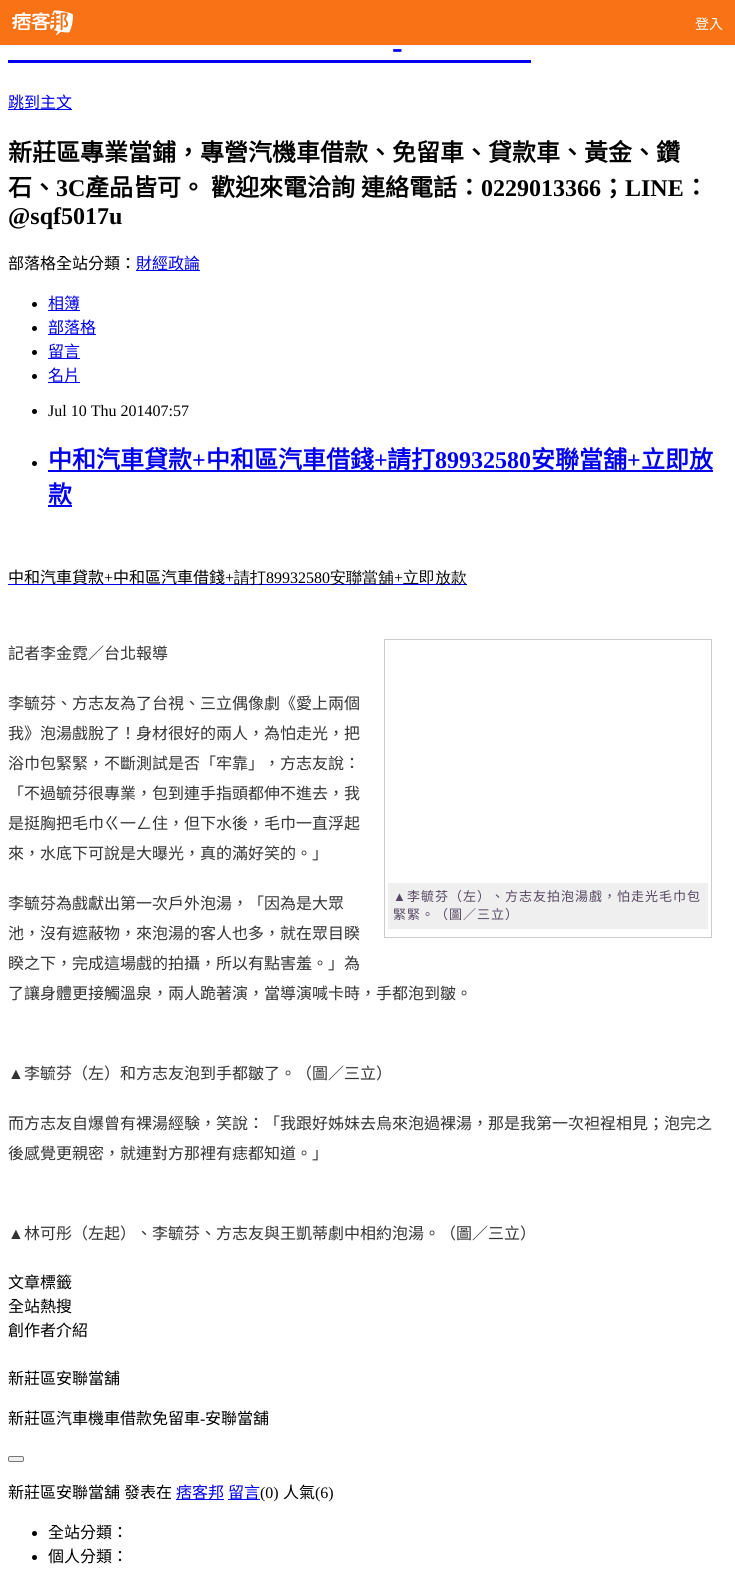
import math
import cairo


def write_spaced(ctx, x, y, s, letter, word):
	ctx.move_to(x, y)
	for ch in s:
		ctx.show_text(ch)
		ctx.rel_move_to(letter + word * (ch == ' '), 0)

def round_path(ctx, x, y, w, h, r):
	ctx.new_sub_path()
	for i, (u, v) in enumerate([(x + w - r, y + h - r), (x + r, y + h - r), (x + r, y + r), (x + w - r, y + r)]):
		ctx.arc(u, v, r, i * math.pi / 2, (i + 1) * math.pi / 2)
	ctx.close_path()

def blur_box(ctx, x, y, w, h, r, blur, alpha):
	ctx.push_group_with_content(cairo.CONTENT_ALPHA)
	ctx.set_operator(cairo.OPERATOR_SOURCE)
	for i in range(15, -16, -2):
		e = blur * i / 6
		if min(w, h) + 2 * e > 0:
			ctx.set_source_rgba(0, 0, 0, alpha * math.erfc((i - 1) / 8.5) / 2)
			round_path(ctx, x - e, y - e, w + 2 * e, h + 2 * e, max(0, min(r + e + blur * .6, min(w, h) / 2 + e)))
			ctx.fill()
	ctx.mask(ctx.pop_group())

def paste(ctx, path, x, y, w, h):
	ctx.save()
	ctx.set_source_surface(cairo.ImageSurface.create_from_png(path), x, y)
	ctx.rectangle(x, y, w, h)
	ctx.fill()
	ctx.restore()

def draw(ctx):
	ctx.set_source_rgb(1, 1, 1)
	ctx.paint()
	ctx.set_source_rgb(0, 0, 0)
	blur_box(ctx, 0, 1, 735, 45, 0, 1, 0.05)
	ctx.set_source_rgb(0.976, 0.451, 0.086)
	ctx.rectangle(0, 0, 735, 45)
	ctx.fill()
	paste(ctx, 'media/1.png', 12, 10, 61, 25)
	ctx.select_font_face('Noto Sans CJK TC')
	ctx.set_font_size(14)
	ctx.set_source_rgb(1, 1, 1)
	ctx.move_to(695, 29)
	ctx.show_text('登入')
	ctx.select_font_face('Liberation Serif', cairo.FONT_SLANT_NORMAL, cairo.FONT_WEIGHT_BOLD)
	ctx.set_font_size(32)
	ctx.set_source_rgb(0, 0, 0.933)
	ctx.move_to(392, 58)
	ctx.show_text('-')
	ctx.rectangle(8, 60, 523, 3)
	ctx.fill()
	ctx.rectangle(8, 109, 64, 1)
	ctx.fill()
	ctx.select_font_face('Noto Sans CJK TC')
	ctx.set_font_size(16)
	ctx.move_to(8, 108)
	ctx.show_text('跳到主文')
	ctx.select_font_face('Noto Sans CJK TC', cairo.FONT_SLANT_NORMAL, cairo.FONT_WEIGHT_BOLD)
	ctx.set_font_size(24)
	ctx.set_source_rgb(0, 0, 0)
	ctx.move_to(8, 161)
	ctx.show_text('新莊區專業當鋪，專營汽機車借款、免留車、貸款車、黃金、鑽')
	ctx.move_to(8, 196)
	ctx.show_text('石、')
	ctx.select_font_face('Liberation Serif', cairo.FONT_SLANT_NORMAL, cairo.FONT_WEIGHT_BOLD)
	ctx.move_to(56, 196)
	ctx.show_text('3C')
	ctx.select_font_face('Noto Sans CJK TC', cairo.FONT_SLANT_NORMAL, cairo.FONT_WEIGHT_BOLD)
	for x, y, s in [
		(85, 196, '產品皆可。'),
		(211, 196, '歡迎來電洽詢'),
		(361, 196, '連絡電話：'),
	]:
		ctx.move_to(x, y)
		ctx.show_text(s)
	ctx.select_font_face('Liberation Serif', cairo.FONT_SLANT_NORMAL, cairo.FONT_WEIGHT_BOLD)
	ctx.move_to(481, 196)
	ctx.show_text('0229013366')
	ctx.select_font_face('Noto Sans CJK TC', cairo.FONT_SLANT_NORMAL, cairo.FONT_WEIGHT_BOLD)
	ctx.move_to(601, 196)
	ctx.show_text('；')
	ctx.select_font_face('Liberation Serif', cairo.FONT_SLANT_NORMAL, cairo.FONT_WEIGHT_BOLD)
	ctx.move_to(625, 196)
	ctx.show_text('LINE')
	ctx.select_font_face('Noto Sans CJK TC', cairo.FONT_SLANT_NORMAL, cairo.FONT_WEIGHT_BOLD)
	ctx.move_to(684, 196)
	ctx.show_text('：')
	ctx.select_font_face('Liberation Serif', cairo.FONT_SLANT_NORMAL, cairo.FONT_WEIGHT_BOLD)
	ctx.move_to(8, 224)
	ctx.show_text('@sqf5017u')
	ctx.select_font_face('Noto Sans CJK TC')
	ctx.set_font_size(16)
	ctx.move_to(8, 269)
	ctx.show_text('部落格全站分類：')
	ctx.set_source_rgb(0, 0, 0.933)
	ctx.rectangle(136, 270, 64, 1)
	ctx.fill()
	ctx.move_to(136, 269)
	ctx.show_text('財經政論')
	ctx.set_source_rgb(0, 0, 0)
	ctx.new_path()
	ctx.arc(34.5, 304.5, 2.5, 0, 2 * math.pi)
	ctx.fill()
	ctx.set_source_rgb(0, 0, 0.933)
	ctx.rectangle(48, 310, 32, 1)
	ctx.fill()
	ctx.move_to(48, 309)
	ctx.show_text('相簿')
	ctx.set_source_rgb(0, 0, 0)
	ctx.new_path()
	ctx.arc(34.5, 328.5, 2.5, 0, 2 * math.pi)
	ctx.fill()
	ctx.set_source_rgb(0, 0, 0.933)
	ctx.rectangle(48, 334, 48, 1)
	ctx.fill()
	ctx.move_to(48, 333)
	ctx.show_text('部落格')
	ctx.set_source_rgb(0, 0, 0)
	ctx.new_path()
	ctx.arc(34.5, 352.5, 2.5, 0, 2 * math.pi)
	ctx.fill()
	ctx.set_source_rgb(0, 0, 0.933)
	ctx.rectangle(48, 358, 32, 1)
	ctx.fill()
	ctx.move_to(48, 357)
	ctx.show_text('留言')
	ctx.set_source_rgb(0, 0, 0)
	ctx.new_path()
	ctx.arc(34.5, 376.5, 2.5, 0, 2 * math.pi)
	ctx.fill()
	ctx.set_source_rgb(0, 0, 0.933)
	ctx.rectangle(48, 382, 32, 1)
	ctx.fill()
	ctx.move_to(48, 381)
	ctx.show_text('名片')
	ctx.set_source_rgb(0, 0, 0)
	ctx.new_path()
	ctx.arc(34.5, 411.5, 2.5, 0, 2 * math.pi)
	ctx.fill()
	ctx.select_font_face('Liberation Serif')
	ctx.move_to(48, 416)
	ctx.show_text('Jul 10 Thu 201407:57')
	ctx.new_path()
	ctx.arc(34.5, 463.5, 2.5, 0, 2 * math.pi)
	ctx.fill()
	ctx.select_font_face('Noto Sans CJK TC', cairo.FONT_SLANT_NORMAL, cairo.FONT_WEIGHT_BOLD)
	ctx.set_font_size(24)
	ctx.set_source_rgb(0, 0, 0.933)
	ctx.move_to(48, 468)
	ctx.show_text('中和汽車貸款')
	ctx.select_font_face('Liberation Serif', cairo.FONT_SLANT_NORMAL, cairo.FONT_WEIGHT_BOLD)
	ctx.move_to(192, 468)
	ctx.show_text('+')
	ctx.select_font_face('Noto Sans CJK TC', cairo.FONT_SLANT_NORMAL, cairo.FONT_WEIGHT_BOLD)
	ctx.move_to(206, 468)
	ctx.show_text('中和區汽車借錢')
	ctx.select_font_face('Liberation Serif', cairo.FONT_SLANT_NORMAL, cairo.FONT_WEIGHT_BOLD)
	ctx.move_to(374, 468)
	ctx.show_text('+')
	ctx.rectangle(48, 470, 665, 2)
	ctx.fill()
	ctx.select_font_face('Noto Sans CJK TC', cairo.FONT_SLANT_NORMAL, cairo.FONT_WEIGHT_BOLD)
	ctx.move_to(387, 468)
	ctx.show_text('請打')
	ctx.select_font_face('Liberation Serif', cairo.FONT_SLANT_NORMAL, cairo.FONT_WEIGHT_BOLD)
	ctx.move_to(435, 468)
	ctx.show_text('89932580')
	ctx.select_font_face('Noto Sans CJK TC', cairo.FONT_SLANT_NORMAL, cairo.FONT_WEIGHT_BOLD)
	ctx.move_to(531, 468)
	ctx.show_text('安聯當舖')
	ctx.select_font_face('Liberation Serif', cairo.FONT_SLANT_NORMAL, cairo.FONT_WEIGHT_BOLD)
	ctx.move_to(627, 468)
	ctx.show_text('+')
	ctx.select_font_face('Noto Sans CJK TC', cairo.FONT_SLANT_NORMAL, cairo.FONT_WEIGHT_BOLD)
	ctx.move_to(641, 468)
	ctx.show_text('立即放')
	ctx.move_to(48, 503)
	ctx.show_text('款')
	ctx.rectangle(48, 505, 24, 2)
	ctx.fill()
	ctx.rectangle(8, 584, 459, 1)
	ctx.fill()
	ctx.select_font_face('Noto Sans CJK TC')
	ctx.set_font_size(16)
	ctx.set_source_rgb(0, 0, 0)
	ctx.move_to(8, 583)
	ctx.show_text('中和汽車貸款')
	ctx.select_font_face('Liberation Serif')
	ctx.move_to(104, 583)
	ctx.show_text('+')
	ctx.select_font_face('Noto Sans CJK TC')
	ctx.move_to(113, 583)
	ctx.show_text('中和區汽車借錢')
	ctx.select_font_face('Liberation Serif')
	ctx.move_to(225, 583)
	ctx.show_text('+')
	ctx.select_font_face('WenQuanYi Zen Hei Medium')
	ctx.move_to(234, 583)
	ctx.show_text('請打')
	ctx.select_font_face('Liberation Serif')
	ctx.move_to(266, 583)
	ctx.show_text('89932580')
	ctx.select_font_face('WenQuanYi Zen Hei Medium')
	ctx.move_to(330, 583)
	ctx.show_text('安聯當舖')
	ctx.select_font_face('Liberation Serif')
	ctx.move_to(394, 583)
	ctx.show_text('+')
	ctx.select_font_face('WenQuanYi Zen Hei Medium')
	ctx.move_to(403, 583)
	ctx.show_text('立即放款')
	ctx.select_font_face('Noto Sans CJK TC')
	ctx.set_source_rgb(0.2, 0.2, 0.2)
	for x, y, s in [
		(8, 659, '記者李金霓／台北報導'),
		(8, 709, '李毓芬、方志友為了台視、三立偶像劇《愛上兩個'),
		(8, 739, '我》泡湯戲脫了！身材很好的兩人，為怕走光，把'),
		(8, 769, '浴巾包緊緊，不斷測試是否「牢靠」，方志友說：'),
		(8, 799, '「不過毓芬很專業，包到連手指頭都伸不進去，我'),
		(8, 829, '是挺胸把毛巾ㄍ一ㄥ住，但下水後，毛巾一直浮起'),
		(8, 859, '來，水底下可說是大曝光，真的滿好笑的。」'),
		(8, 909, '李毓芬為戲獻出第一次戶外泡湯，「因為是大眾'),
		(8, 939, '池，沒有遮蔽物，來泡湯的客人也多，就在眾目睽'),
		(8, 969, '睽之下，完成這場戲的拍攝，所以有點害羞。」為'),
		(8, 999, '了讓身體更接觸溫泉，兩人跪著演，當導演喊卡時，手都泡到皺。'),
	]:
		ctx.move_to(x, y)
		ctx.show_text(s)
	ctx.select_font_face('Liberation Sans')
	ctx.move_to(8, 1079)
	ctx.show_text('▲')
	ctx.select_font_face('Noto Sans CJK TC')
	for x, y, s in [
		(24, 1079, '李毓芬（左）和方志友泡到手都皺了。（圖／三立）'),
		(8, 1129, '而方志友自爆曾有裸湯經験，笑說：「我跟好姊妹去烏來泡過裸湯，那是我第一次袒裎相見；泡完之'),
		(8, 1159, '後感覺更親密，就連對方那裡有痣都知道。」'),
	]:
		ctx.move_to(x, y)
		ctx.show_text(s)
	ctx.select_font_face('Liberation Sans')
	ctx.move_to(8, 1239)
	ctx.show_text('▲')
	ctx.select_font_face('Noto Sans CJK TC')
	ctx.move_to(24, 1239)
	ctx.show_text('林可彤（左起）、李毓芬、方志友與王凱蒂劇中相約泡湯。（圖／三立）')
	ctx.rectangle(384.5, 639.5, 327, 298)
	ctx.set_source_rgb(0.8, 0.8, 0.8)
	ctx.set_line_width(1)
	ctx.stroke()
	ctx.set_source_rgb(0.937, 0.937, 0.937)
	ctx.rectangle(388, 883, 320, 46)
	ctx.fill()
	ctx.select_font_face('Liberation Sans')
	ctx.set_font_size(13)
	ctx.set_source_rgb(0.341, 0.275, 0.384)
	write_spaced(ctx, 393, 901, '▲', 1, 0)
	ctx.select_font_face('Noto Sans CJK TC')
	write_spaced(ctx, 407, 901, '李毓芬（左）、方志友拍泡湯戲，怕走光毛巾包', 1, 0)
	write_spaced(ctx, 393, 919, '緊緊。（圖／三立）', 1, 0)
	ctx.set_font_size(16)
	ctx.set_source_rgb(0, 0, 0)
	for x, y, s in [
		(8, 1288, '文章標籤'),
		(8, 1312, '全站熱搜'),
		(8, 1336, '創作者介紹'),
		(8, 1384, '新莊區安聯當舖'),
		(8, 1424, '新莊區汽車機車借款免留車'),
	]:
		ctx.move_to(x, y)
		ctx.show_text(s)
	ctx.select_font_face('Liberation Serif')
	ctx.move_to(200, 1424)
	ctx.show_text('-')
	ctx.select_font_face('Noto Sans CJK TC')
	ctx.move_to(205, 1424)
	ctx.show_text('安聯當舖')
	ctx.set_source_rgb(0.937, 0.937, 0.937)
	round_path(ctx, 8.5, 1456.5, 15, 5, 1.5)
	ctx.fill_preserve()
	ctx.set_source_rgb(0.463, 0.463, 0.463)
	ctx.stroke()
	ctx.set_source_rgb(0, 0, 0)
	ctx.move_to(8, 1498)
	ctx.show_text('新莊區安聯當舖')
	ctx.move_to(124, 1498)
	ctx.show_text('發表在')
	ctx.set_source_rgb(0, 0, 0.933)
	ctx.rectangle(176, 1499, 48, 1)
	ctx.fill()
	ctx.move_to(176, 1498)
	ctx.show_text('痞客邦')
	ctx.rectangle(228, 1499, 32, 1)
	ctx.fill()
	ctx.move_to(228, 1498)
	ctx.show_text('留言')
	ctx.select_font_face('Liberation Serif')
	ctx.set_source_rgb(0, 0, 0)
	ctx.move_to(260, 1498)
	ctx.show_text('(0)')
	ctx.select_font_face('Noto Sans CJK TC')
	ctx.move_to(283, 1498)
	ctx.show_text('人氣')
	ctx.select_font_face('Liberation Serif')
	ctx.move_to(315, 1498)
	ctx.show_text('(6)')
	ctx.new_path()
	ctx.arc(34.5, 1533.5, 2.5, 0, 2 * math.pi)
	ctx.fill()
	ctx.select_font_face('Noto Sans CJK TC')
	ctx.move_to(48, 1538)
	ctx.show_text('全站分類：')
	ctx.new_path()
	ctx.arc(34.5, 1557.5, 2.5, 0, 2 * math.pi)
	ctx.fill()
	ctx.move_to(48, 1562)
	ctx.show_text('個人分類：')


surface = cairo.ImageSurface(cairo.FORMAT_RGB24, 735, 1579)
ctx = cairo.Context(surface)
options = cairo.FontOptions()
options.set_hint_metrics(cairo.HINT_METRICS_OFF)
options.set_hint_style(cairo.HINT_STYLE_NONE)
ctx.set_font_options(options)
ctx.set_miter_limit(4)
draw(ctx)
surface.write_to_png('image.png')
